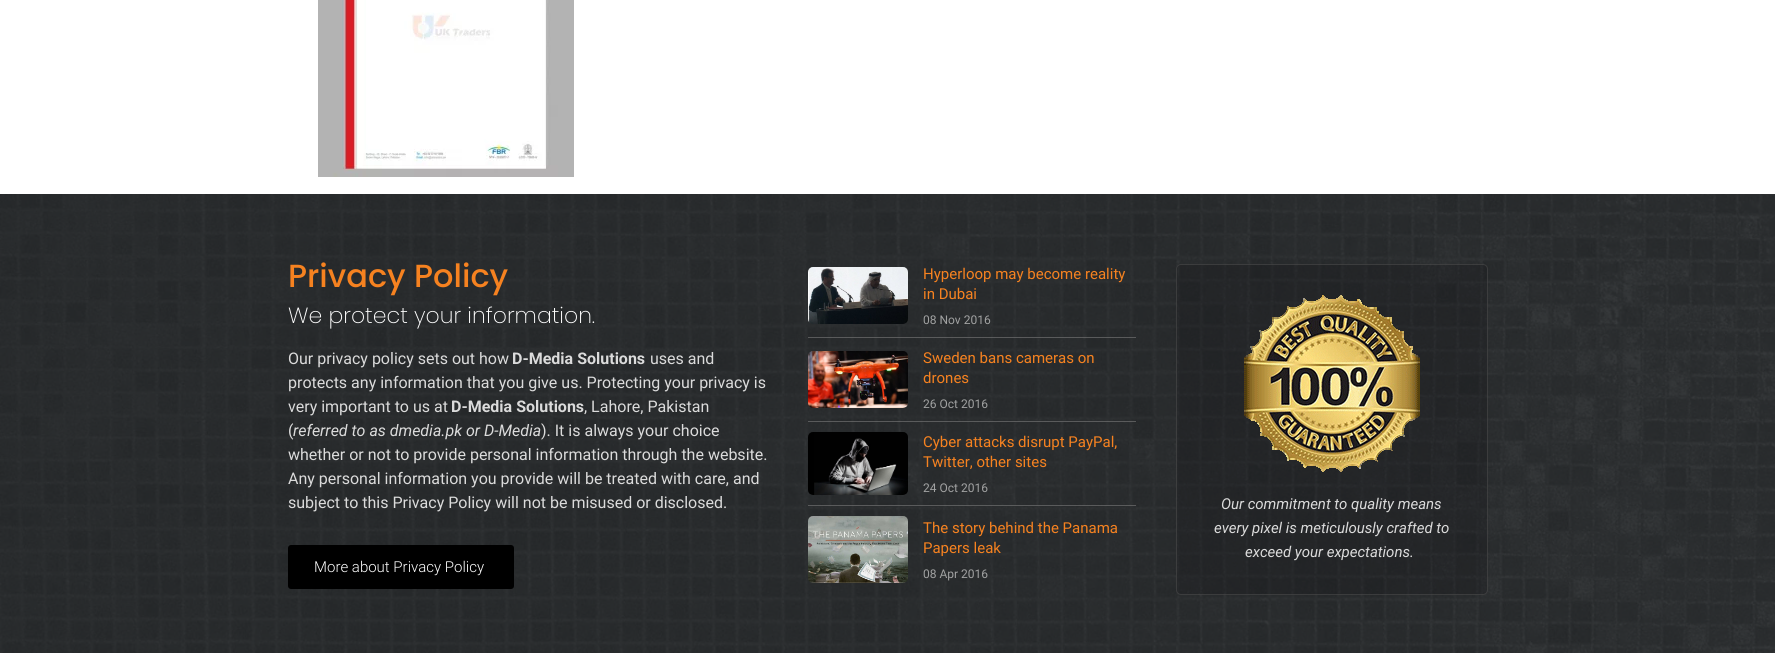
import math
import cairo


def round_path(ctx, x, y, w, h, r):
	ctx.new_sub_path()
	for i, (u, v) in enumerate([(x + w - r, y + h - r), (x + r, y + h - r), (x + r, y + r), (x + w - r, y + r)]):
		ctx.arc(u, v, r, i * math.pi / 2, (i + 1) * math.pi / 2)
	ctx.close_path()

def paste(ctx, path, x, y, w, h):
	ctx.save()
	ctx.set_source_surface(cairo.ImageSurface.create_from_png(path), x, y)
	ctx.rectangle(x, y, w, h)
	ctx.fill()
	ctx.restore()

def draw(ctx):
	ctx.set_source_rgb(1, 1, 1)
	ctx.paint()
	paste(ctx, 'media/1.png', 318, 0, 256, 177)
	paste(ctx, 'media/2.png', 0, 194, 1775, 459)
	ctx.select_font_face('Poppins Medium')
	ctx.set_font_size(32)
	ctx.set_source_rgb(0.961, 0.51, 0.125)
	ctx.move_to(288, 287)
	ctx.show_text('Privacy Policy')
	ctx.select_font_face('Poppins ExtraLight')
	ctx.set_font_size(22)
	ctx.set_source_rgb(1, 1, 1)
	ctx.move_to(288, 323)
	ctx.show_text('We protect your information.')
	ctx.select_font_face('Roboto')
	ctx.set_font_size(16)
	ctx.set_source_rgb(0.859, 0.859, 0.859)
	ctx.move_to(288, 364)
	ctx.show_text('Our privacy policy sets out how')
	ctx.select_font_face('Roboto', cairo.FONT_SLANT_NORMAL, cairo.FONT_WEIGHT_BOLD)
	ctx.move_to(512, 364)
	ctx.show_text('D-Media Solutions')
	ctx.select_font_face('Roboto')
	for x, y, s in [
		(650, 364, 'uses and'),
		(288, 388, 'protects any information that you give us. Protecting your privacy is'),
		(288, 412, 'very important to us at'),
	]:
		ctx.move_to(x, y)
		ctx.show_text(s)
	ctx.select_font_face('Roboto', cairo.FONT_SLANT_NORMAL, cairo.FONT_WEIGHT_BOLD)
	ctx.move_to(451, 412)
	ctx.show_text('D-Media Solutions')
	ctx.select_font_face('Roboto')
	ctx.move_to(584, 412)
	ctx.show_text(', Lahore, Pakistan')
	ctx.move_to(288, 436)
	ctx.show_text('(')
	ctx.select_font_face('Roboto', cairo.FONT_SLANT_ITALIC)
	ctx.move_to(293, 436)
	ctx.show_text('referred to as dmedia.pk or D-Media')
	ctx.select_font_face('Roboto')
	for x, y, s in [
		(541, 436, '). It is always your choice'),
		(288, 460, 'whether or not to provide personal information through the website.'),
		(288, 484, 'Any personal information you provide will be treated with care, and'),
		(288, 508, 'subject to this Privacy Policy will not be misused or disclosed.'),
	]:
		ctx.move_to(x, y)
		ctx.show_text(s)
	ctx.set_source_rgb(0, 0, 0)
	round_path(ctx, 288, 545, 226, 44, 3)
	ctx.fill()
	ctx.select_font_face('Roboto Light')
	ctx.set_font_size(15)
	ctx.set_source_rgb(1, 1, 1)
	ctx.move_to(314, 572)
	ctx.show_text('More about Privacy Policy')
	paste(ctx, 'media/3.png', 808, 267, 100, 57)
	ctx.select_font_face('Roboto')
	ctx.set_source_rgb(0.961, 0.51, 0.125)
	ctx.move_to(923, 279)
	ctx.show_text('Hyperloop may become reality')
	ctx.move_to(923, 299)
	ctx.show_text('in Dubai')
	ctx.set_font_size(12)
	ctx.set_source_rgb(0.631, 0.635, 0.635)
	ctx.move_to(923, 324)
	ctx.show_text('08 Nov 2016')
	ctx.set_source_rgba(0.471, 0.471, 0.471, 0.63)
	ctx.rectangle(808, 337, 328, 1)
	ctx.fill()
	paste(ctx, 'media/4.png', 808, 351, 100, 57)
	ctx.set_font_size(15)
	ctx.set_source_rgb(0.961, 0.51, 0.125)
	ctx.move_to(923, 363)
	ctx.show_text('Sweden bans cameras on')
	ctx.move_to(923, 383)
	ctx.show_text('drones')
	ctx.set_font_size(12)
	ctx.set_source_rgb(0.631, 0.635, 0.635)
	ctx.move_to(923, 408)
	ctx.show_text('26 Oct 2016')
	ctx.set_source_rgba(0.471, 0.471, 0.471, 0.63)
	ctx.rectangle(808, 421, 328, 1)
	ctx.fill()
	paste(ctx, 'media/5.png', 808, 432, 100, 63)
	ctx.set_font_size(15)
	ctx.set_source_rgb(0.961, 0.51, 0.125)
	ctx.move_to(923, 447)
	ctx.show_text('Cyber attacks disrupt PayPal,')
	ctx.move_to(923, 467)
	ctx.show_text('Twitter, other sites')
	ctx.set_font_size(12)
	ctx.set_source_rgb(0.631, 0.635, 0.635)
	ctx.move_to(923, 492)
	ctx.show_text('24 Oct 2016')
	ctx.set_source_rgba(0.471, 0.471, 0.471, 0.63)
	ctx.rectangle(808, 505, 328, 1)
	ctx.fill()
	paste(ctx, 'media/6.png', 808, 516, 100, 67)
	ctx.set_font_size(15)
	ctx.set_source_rgb(0.961, 0.51, 0.125)
	ctx.move_to(923, 533)
	ctx.show_text('The story behind the Panama')
	ctx.move_to(923, 553)
	ctx.show_text('Papers leak')
	ctx.set_font_size(12)
	ctx.set_source_rgb(0.631, 0.635, 0.635)
	ctx.move_to(923, 578)
	ctx.show_text('08 Apr 2016')
	ctx.set_source_rgba(0.086, 0.09, 0.098, 0.28)
	round_path(ctx, 1176, 264, 312, 331, 5)
	ctx.fill()
	round_path(ctx, 1176.5, 264.5, 311, 330, 4.5)
	ctx.set_source_rgba(0.31, 0.31, 0.31, 0.56)
	ctx.set_line_width(1)
	ctx.stroke()
	paste(ctx, 'media/7.png', 1244, 295, 176, 177)
	ctx.select_font_face('Roboto', cairo.FONT_SLANT_ITALIC)
	ctx.set_font_size(15)
	ctx.set_source_rgb(0.859, 0.859, 0.859)
	for x, y, s in [
		(1221, 509, 'Our commitment to quality means'),
		(1214, 533, 'every pixel is meticulously crafted to'),
		(1245, 557, 'exceed your expectations.'),
	]:
		ctx.move_to(x, y)
		ctx.show_text(s)


surface = cairo.ImageSurface(cairo.FORMAT_RGB24, 1775, 653)
ctx = cairo.Context(surface)
options = cairo.FontOptions()
options.set_hint_metrics(cairo.HINT_METRICS_OFF)
options.set_hint_style(cairo.HINT_STYLE_NONE)
ctx.set_font_options(options)
ctx.set_miter_limit(4)
draw(ctx)
surface.write_to_png('image.png')
